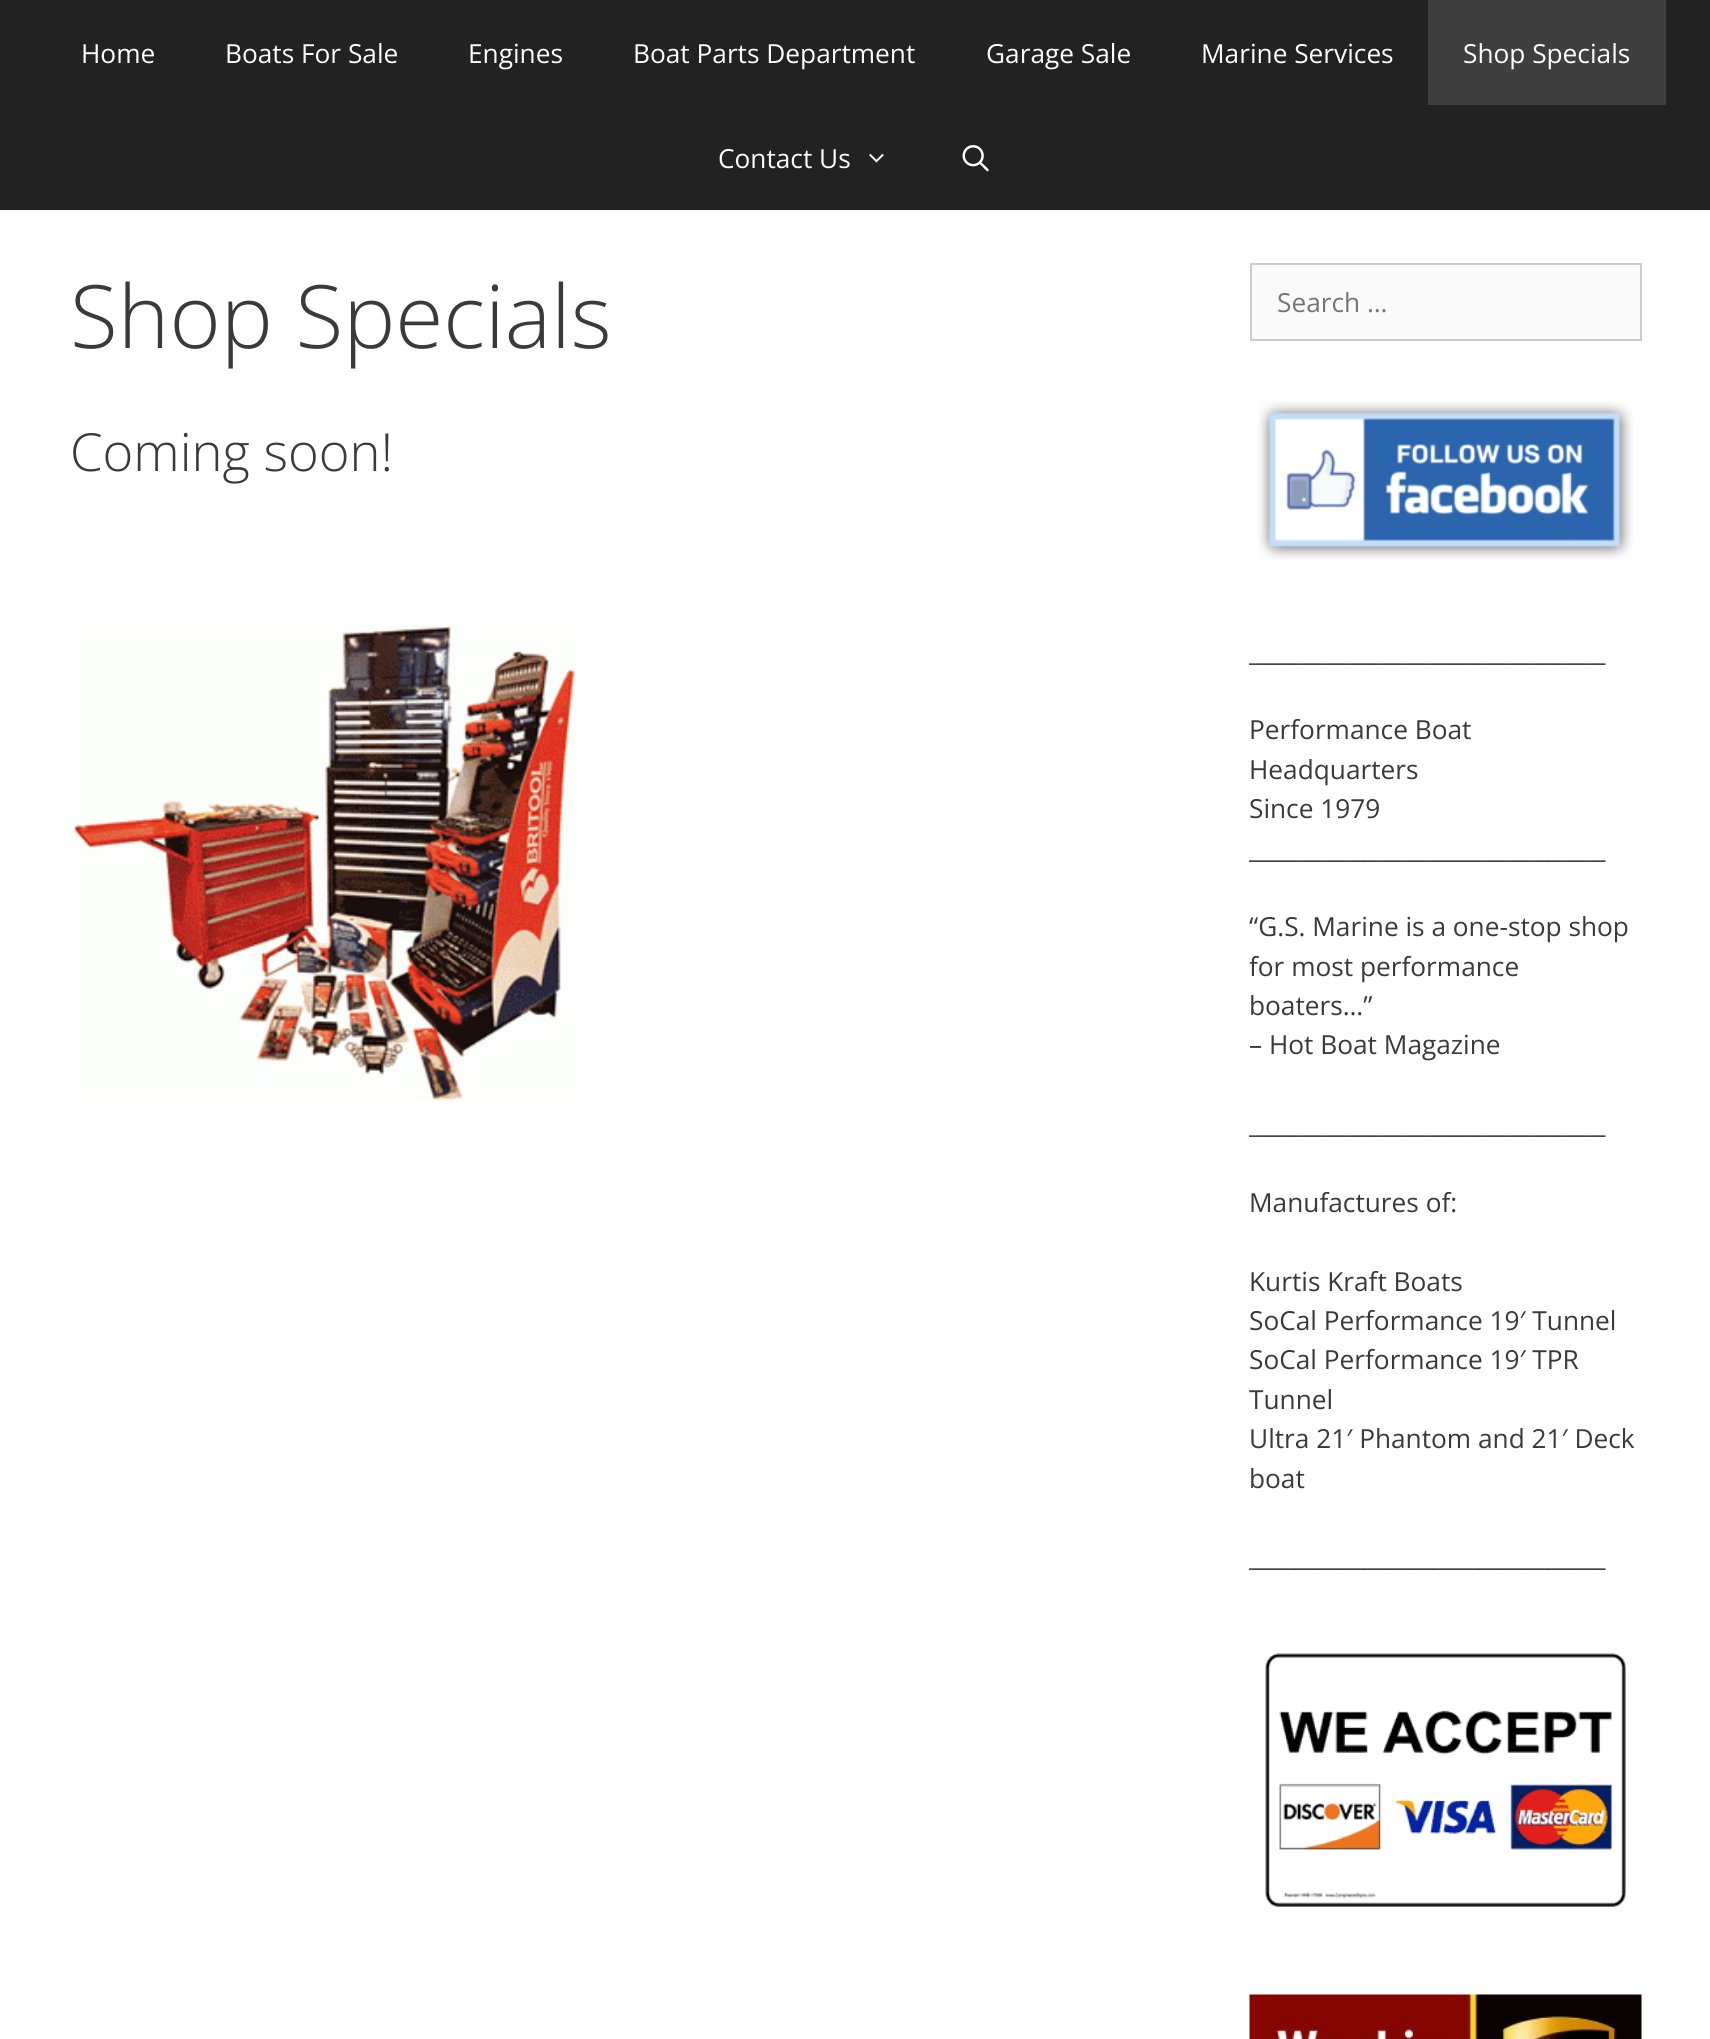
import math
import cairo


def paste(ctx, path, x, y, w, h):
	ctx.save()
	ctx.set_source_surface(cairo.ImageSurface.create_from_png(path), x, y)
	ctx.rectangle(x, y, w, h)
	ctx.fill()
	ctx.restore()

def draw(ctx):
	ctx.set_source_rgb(1, 1, 1)
	ctx.paint()
	ctx.set_source_rgb(0.133, 0.133, 0.133)
	ctx.rectangle(0, 0, 1710, 210)
	ctx.fill()
	ctx.select_font_face('Open Sans')
	ctx.set_font_size(26.25)
	ctx.set_source_rgb(1, 1, 1)
	for x, y, s in [
		(81, 63, 'Home'),
		(225, 63, 'Boats For Sale'),
		(468, 63, 'Engines'),
		(633, 63, 'Boat Parts Department'),
		(986, 63, 'Garage Sale'),
		(1201, 63, 'Marine Services'),
	]:
		ctx.move_to(x, y)
		ctx.show_text(s)
	ctx.set_source_rgb(0.247, 0.247, 0.247)
	ctx.rectangle(1428, 0, 238, 105)
	ctx.fill()
	ctx.set_source_rgb(1, 1, 1)
	ctx.move_to(1463, 63)
	ctx.show_text('Shop Specials')
	ctx.move_to(718, 168)
	ctx.show_text('Contact Us')
	paste(ctx, 'media/1.png', 869, 153, 15, 10)
	paste(ctx, 'media/2.png', 962, 145, 27, 27)
	ctx.select_font_face('Open Sans Light')
	ctx.set_font_size(87.5)
	ctx.set_source_rgb(0.227, 0.227, 0.227)
	ctx.move_to(70, 348)
	ctx.show_text('Shop Specials')
	ctx.set_font_size(52.5)
	ctx.move_to(70, 471)
	ctx.show_text('Coming soon!')
	paste(ctx, 'media/3.png', 73, 625, 503, 476)
	ctx.set_source_rgb(0.98, 0.98, 0.98)
	ctx.rectangle(1251, 264, 390, 76)
	ctx.fill_preserve()
	ctx.set_source_rgb(0.8, 0.8, 0.8)
	ctx.stroke()
	ctx.select_font_face('Open Sans')
	ctx.set_font_size(26.25)
	ctx.set_source_rgb(0.459, 0.459, 0.459)
	ctx.move_to(1277, 312)
	ctx.show_text('Search …')
	paste(ctx, 'media/4.png', 1258, 402, 375, 158)
	ctx.set_source_rgb(0.227, 0.227, 0.227)
	for x, y, s in [
		(1249, 661, '_______________________________'),
		(1249, 739, 'Performance Boat'),
		(1249, 779, 'Headquarters'),
		(1249, 818, 'Since 1979'),
		(1249, 858, '_______________________________'),
		(1249, 936, '“G.S. Marine is a one-stop shop'),
		(1249, 976, 'for most performance'),
		(1249, 1015, 'boaters…”'),
		(1249, 1054, '– Hot Boat Magazine'),
		(1249, 1133, '_______________________________'),
		(1249, 1212, 'Manufactures of:'),
		(1249, 1291, 'Kurtis Kraft Boats'),
		(1249, 1330, 'SoCal Performance 19′ Tunnel'),
		(1249, 1369, 'SoCal Performance 19′ TPR'),
		(1249, 1409, 'Tunnel'),
		(1249, 1448, 'Ultra 21′ Phantom and 21′ Deck'),
		(1249, 1488, 'boat'),
		(1249, 1566, '_______________________________'),
	]:
		ctx.move_to(x, y)
		ctx.show_text(s)
	paste(ctx, 'media/5.png', 1265, 1653, 361, 254)
	paste(ctx, 'media/6.png', 1249, 1994, 393, 45)


surface = cairo.ImageSurface(cairo.FORMAT_RGB24, 1710, 2039)
ctx = cairo.Context(surface)
options = cairo.FontOptions()
options.set_hint_metrics(cairo.HINT_METRICS_OFF)
options.set_hint_style(cairo.HINT_STYLE_NONE)
ctx.set_font_options(options)
ctx.set_miter_limit(4)
draw(ctx)
surface.write_to_png('image.png')
